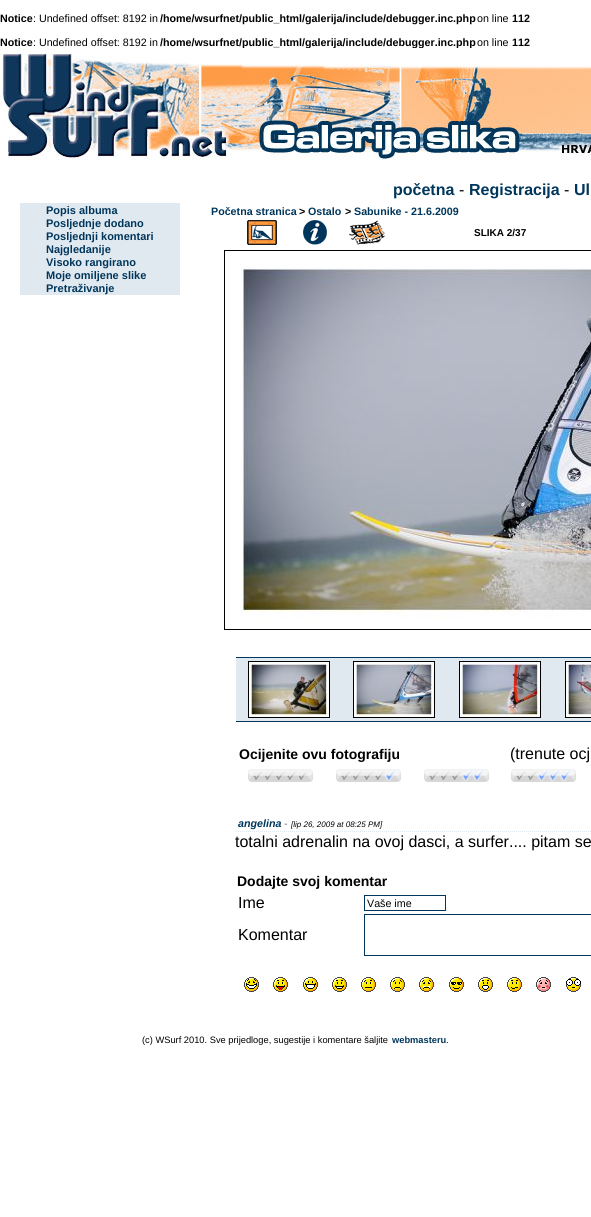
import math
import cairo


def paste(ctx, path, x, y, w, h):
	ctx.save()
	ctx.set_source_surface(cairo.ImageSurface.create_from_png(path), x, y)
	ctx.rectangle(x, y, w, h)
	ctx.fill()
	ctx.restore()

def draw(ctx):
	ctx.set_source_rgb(1, 1, 1)
	ctx.paint()
	ctx.select_font_face('Liberation Sans', cairo.FONT_SLANT_NORMAL, cairo.FONT_WEIGHT_BOLD)
	ctx.set_font_size(10.7)
	ctx.set_source_rgb(0, 0, 0)
	ctx.move_to(0, 22)
	ctx.show_text('Notice')
	ctx.select_font_face('Liberation Sans')
	ctx.move_to(33, 22)
	ctx.show_text(': Undefined offset: 8192 in')
	ctx.select_font_face('Liberation Sans', cairo.FONT_SLANT_NORMAL, cairo.FONT_WEIGHT_BOLD)
	ctx.move_to(160, 22)
	ctx.show_text('/home/wsurfnet/public_html/galerija/include/debugger.inc.php')
	ctx.select_font_face('Liberation Sans')
	ctx.move_to(477, 22)
	ctx.show_text('on line')
	ctx.select_font_face('Liberation Sans', cairo.FONT_SLANT_NORMAL, cairo.FONT_WEIGHT_BOLD)
	ctx.move_to(512, 22)
	ctx.show_text('112')
	ctx.move_to(0, 46)
	ctx.show_text('Notice')
	ctx.select_font_face('Liberation Sans')
	ctx.move_to(33, 46)
	ctx.show_text(': Undefined offset: 8192 in')
	ctx.select_font_face('Liberation Sans', cairo.FONT_SLANT_NORMAL, cairo.FONT_WEIGHT_BOLD)
	ctx.move_to(160, 46)
	ctx.show_text('/home/wsurfnet/public_html/galerija/include/debugger.inc.php')
	ctx.select_font_face('Liberation Sans')
	ctx.move_to(477, 46)
	ctx.show_text('on line')
	ctx.select_font_face('Liberation Sans', cairo.FONT_SLANT_NORMAL, cairo.FONT_WEIGHT_BOLD)
	ctx.move_to(512, 46)
	ctx.show_text('112')
	paste(ctx, 'media/1.png', 0, 48, 200, 112)
	paste(ctx, 'media/2.png', 200, 48, 200, 112)
	paste(ctx, 'media/3.png', 400, 48, 191, 112)
	ctx.set_source_rgb(0.882, 0.914, 0.941)
	ctx.rectangle(20, 203, 160, 92)
	ctx.fill()
	ctx.set_font_size(11)
	ctx.set_source_rgb(0, 0.212, 0.357)
	for x, y, s in [
		(46, 214, 'Popis albuma'),
		(46, 227, 'Posljednje dodano'),
		(46, 240, 'Posljednji komentari'),
		(46, 253, 'Najgledanije'),
		(46, 266, 'Visoko rangirano'),
		(46, 279, 'Moje omiljene slike'),
		(46, 292, 'Pretraživanje'),
	]:
		ctx.move_to(x, y)
		ctx.show_text(s)
	ctx.set_font_size(16)
	ctx.move_to(393, 195)
	ctx.show_text('početna')
	ctx.select_font_face('Liberation Sans')
	ctx.set_source_rgb(0, 0, 0)
	ctx.move_to(459, 195)
	ctx.show_text('-')
	ctx.select_font_face('Liberation Sans', cairo.FONT_SLANT_NORMAL, cairo.FONT_WEIGHT_BOLD)
	ctx.set_source_rgb(0, 0.212, 0.357)
	ctx.move_to(469, 195)
	ctx.show_text('Registracija')
	ctx.select_font_face('Liberation Sans')
	ctx.set_source_rgb(0, 0, 0)
	ctx.move_to(564, 195)
	ctx.show_text('-')
	ctx.select_font_face('Liberation Sans', cairo.FONT_SLANT_NORMAL, cairo.FONT_WEIGHT_BOLD)
	ctx.set_source_rgb(0, 0.212, 0.357)
	ctx.move_to(574, 195)
	ctx.show_text('Ul')
	ctx.set_font_size(10.7)
	ctx.move_to(211, 215)
	ctx.show_text('Početna stranica')
	ctx.set_source_rgb(0, 0, 0)
	ctx.move_to(299, 215)
	ctx.show_text('>')
	ctx.set_source_rgb(0, 0.212, 0.357)
	ctx.move_to(308, 215)
	ctx.show_text('Ostalo')
	ctx.set_source_rgb(0, 0, 0)
	ctx.move_to(345, 215)
	ctx.show_text('>')
	ctx.set_source_rgb(0, 0.212, 0.357)
	ctx.move_to(354, 215)
	ctx.show_text('Sabunike - 21.6.2009')
	paste(ctx, 'media/4.png', 247, 220, 30, 25)
	paste(ctx, 'media/5.png', 303, 220, 24, 25)
	paste(ctx, 'media/6.png', 349, 220, 36, 25)
	ctx.set_font_size(10)
	ctx.set_source_rgb(0, 0, 0)
	ctx.move_to(474, 236)
	ctx.show_text('SLIKA 2/37')
	ctx.rectangle(224.5, 250.5, 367, 379)
	ctx.set_line_width(1)
	ctx.stroke()
	paste(ctx, 'media/7.png', 241, 267, 350, 352)
	ctx.set_source_rgb(0.882, 0.914, 0.941)
	ctx.rectangle(236, 658, 355, 63)
	ctx.fill()
	ctx.set_source_rgb(0, 0.212, 0.357)
	ctx.rectangle(236, 657, 355, 1)
	ctx.rectangle(236, 721, 355, 1)
	ctx.fill()
	ctx.rectangle(248.5, 661.5, 81, 56)
	ctx.set_source_rgb(0, 0, 0)
	ctx.stroke()
	paste(ctx, 'media/8.png', 249, 662, 80, 55)
	ctx.rectangle(353.5, 661.5, 81, 56)
	ctx.stroke()
	paste(ctx, 'media/9.png', 354, 662, 80, 55)
	ctx.rectangle(459.5, 661.5, 81, 56)
	ctx.stroke()
	paste(ctx, 'media/10.png', 460, 662, 80, 55)
	ctx.rectangle(565.5, 661.5, 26, 56)
	ctx.stroke()
	paste(ctx, 'media/11.png', 566, 662, 25, 55)
	ctx.set_font_size(14)
	ctx.move_to(239, 759)
	ctx.show_text('Ocijenite ovu fotografiju')
	ctx.select_font_face('Liberation Sans')
	ctx.set_font_size(16)
	ctx.move_to(510, 759)
	ctx.show_text('(trenute ocj')
	paste(ctx, 'media/12.png', 248, 769, 65, 13)
	paste(ctx, 'media/13.png', 336, 769, 65, 13)
	paste(ctx, 'media/14.png', 424, 769, 65, 13)
	paste(ctx, 'media/15.png', 511, 769, 65, 13)
	ctx.new_path()
	ctx.move_to(236, 831.5)
	ctx.line_to(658, 831.5)
	ctx.set_source_rgb(0.882, 0.914, 0.941)
	ctx.set_dash([1, 1])
	ctx.stroke()
	ctx.select_font_face('Liberation Sans', cairo.FONT_SLANT_ITALIC, cairo.FONT_WEIGHT_BOLD)
	ctx.set_font_size(10.7)
	ctx.set_source_rgb(0, 0.212, 0.357)
	ctx.move_to(238, 827)
	ctx.show_text('angelina')
	ctx.select_font_face('Liberation Sans', cairo.FONT_SLANT_ITALIC)
	ctx.set_source_rgb(0.463, 0.478, 0.49)
	ctx.move_to(284, 827)
	ctx.show_text('-')
	ctx.set_font_size(8)
	ctx.set_source_rgb(0, 0, 0)
	ctx.move_to(291, 827)
	ctx.show_text('[lip 26, 2009 at 08:25 PM]')
	ctx.select_font_face('Liberation Sans')
	ctx.set_font_size(16)
	ctx.move_to(235, 847)
	ctx.show_text('totalni adrenalin na ovoj dasci, a surfer.... pitam se')
	ctx.select_font_face('Liberation Sans', cairo.FONT_SLANT_NORMAL, cairo.FONT_WEIGHT_BOLD)
	ctx.set_font_size(14)
	ctx.move_to(237, 886)
	ctx.show_text('Dodajte svoj komentar')
	ctx.select_font_face('Liberation Sans')
	ctx.set_font_size(16)
	ctx.move_to(238, 908)
	ctx.show_text('Ime')
	ctx.rectangle(364.5, 895.5, 81, 15)
	ctx.set_source_rgb(0, 0.212, 0.357)
	ctx.set_dash([])
	ctx.stroke()
	ctx.set_font_size(10.7)
	ctx.set_source_rgb(0, 0, 0)
	ctx.move_to(367, 907)
	ctx.show_text('Vaše ime')
	ctx.set_font_size(16)
	ctx.move_to(238, 940)
	ctx.show_text('Komentar')
	ctx.rectangle(364.5, 914.5, 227, 41)
	ctx.set_source_rgb(0, 0.212, 0.357)
	ctx.stroke()
	paste(ctx, 'media/16.png', 244, 977, 15, 15)
	paste(ctx, 'media/17.png', 273, 977, 15, 15)
	paste(ctx, 'media/18.png', 303, 977, 15, 15)
	paste(ctx, 'media/19.png', 332, 977, 15, 15)
	paste(ctx, 'media/20.png', 361, 977, 15, 15)
	paste(ctx, 'media/21.png', 390, 977, 15, 15)
	paste(ctx, 'media/22.png', 419, 977, 15, 15)
	paste(ctx, 'media/23.png', 449, 977, 15, 15)
	paste(ctx, 'media/24.png', 478, 977, 15, 15)
	paste(ctx, 'media/25.png', 507, 977, 15, 15)
	paste(ctx, 'media/26.png', 536, 977, 15, 15)
	paste(ctx, 'media/27.png', 566, 977, 15, 15)
	ctx.set_font_size(9.3)
	ctx.set_source_rgb(0, 0, 0)
	ctx.move_to(142, 1043)
	ctx.show_text('(c) WSurf 2010. Sve prijedloge, sugestije i komentare šaljite')
	ctx.select_font_face('Liberation Sans', cairo.FONT_SLANT_NORMAL, cairo.FONT_WEIGHT_BOLD)
	ctx.set_source_rgb(0, 0.212, 0.357)
	ctx.move_to(392, 1043)
	ctx.show_text('webmasteru')
	ctx.select_font_face('Liberation Sans')
	ctx.set_source_rgb(0, 0, 0)
	ctx.move_to(446, 1043)
	ctx.show_text('.')


surface = cairo.ImageSurface(cairo.FORMAT_RGB24, 591, 1217)
ctx = cairo.Context(surface)
options = cairo.FontOptions()
options.set_hint_metrics(cairo.HINT_METRICS_OFF)
options.set_hint_style(cairo.HINT_STYLE_NONE)
ctx.set_font_options(options)
ctx.set_miter_limit(4)
draw(ctx)
surface.write_to_png('image.png')
